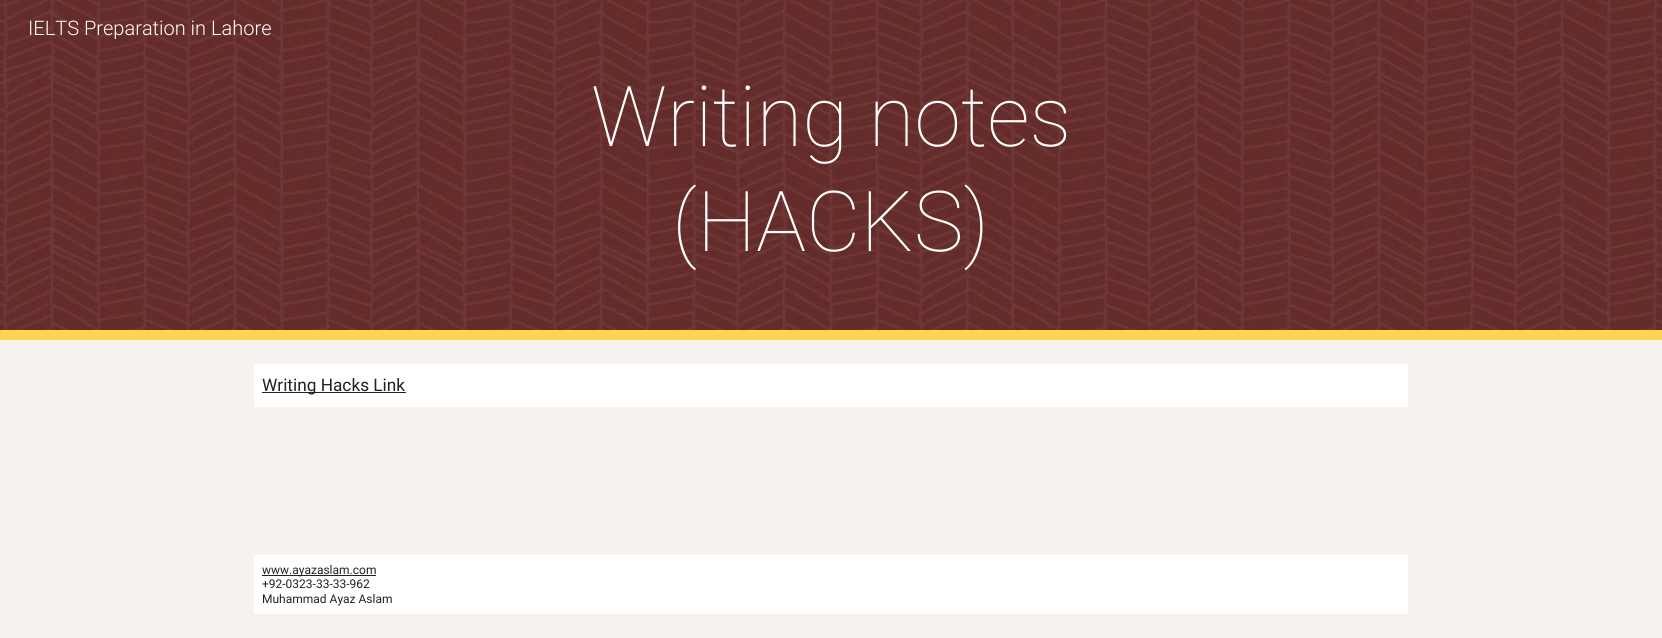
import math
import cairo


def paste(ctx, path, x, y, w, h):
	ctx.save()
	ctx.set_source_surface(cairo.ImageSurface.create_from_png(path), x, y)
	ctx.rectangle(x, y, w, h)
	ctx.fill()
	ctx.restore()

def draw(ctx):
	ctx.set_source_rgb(0.961, 0.949, 0.941)
	ctx.paint()
	paste(ctx, 'media/1.png', 0, 0, 1662, 330)
	ctx.select_font_face('Roboto Light')
	ctx.set_font_size(20)
	ctx.set_source_rgb(1, 1, 1)
	ctx.move_to(28, 35)
	ctx.show_text('IELTS Preparation in Lahore')
	ctx.set_source_rgb(1, 0.835, 0.31)
	ctx.rectangle(0, 330, 1662, 10)
	ctx.fill()
	ctx.select_font_face('Roboto Thin')
	ctx.set_font_size(84)
	ctx.set_source_rgb(1, 1, 1)
	ctx.move_to(591, 146)
	ctx.show_text('Writing notes')
	ctx.move_to(672, 251)
	ctx.show_text('(HACKS)')
	ctx.rectangle(254, 364, 1154, 43)
	ctx.fill()
	ctx.set_source_rgb(0.129, 0.129, 0.129)
	ctx.rectangle(262, 392, 144, 1)
	ctx.fill()
	ctx.select_font_face('Roboto')
	ctx.set_font_size(17.25)
	ctx.move_to(262, 391)
	ctx.show_text('Writing Hacks Link')
	ctx.set_source_rgb(1, 1, 1)
	ctx.rectangle(254, 555, 1154, 59)
	ctx.fill()
	ctx.set_source_rgb(0.129, 0.129, 0.129)
	ctx.rectangle(262, 575, 114, 1)
	ctx.fill()
	ctx.set_font_size(12)
	for x, y, s in [
		(262, 574, 'www.ayazaslam.com'),
		(262, 588, '+92-0323-33-33-962'),
		(262, 603, 'Muhammad Ayaz Aslam'),
	]:
		ctx.move_to(x, y)
		ctx.show_text(s)


surface = cairo.ImageSurface(cairo.FORMAT_RGB24, 1662, 638)
ctx = cairo.Context(surface)
options = cairo.FontOptions()
options.set_hint_metrics(cairo.HINT_METRICS_OFF)
options.set_hint_style(cairo.HINT_STYLE_NONE)
ctx.set_font_options(options)
ctx.set_miter_limit(4)
draw(ctx)
surface.write_to_png('image.png')
